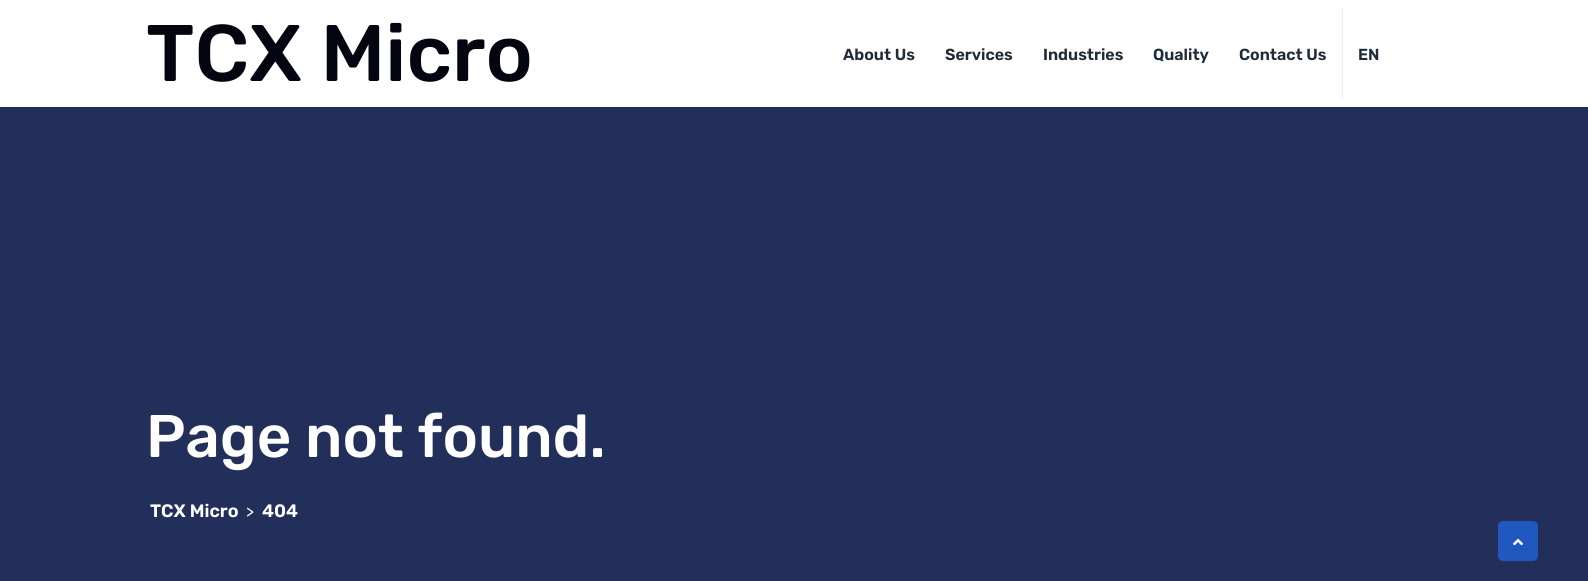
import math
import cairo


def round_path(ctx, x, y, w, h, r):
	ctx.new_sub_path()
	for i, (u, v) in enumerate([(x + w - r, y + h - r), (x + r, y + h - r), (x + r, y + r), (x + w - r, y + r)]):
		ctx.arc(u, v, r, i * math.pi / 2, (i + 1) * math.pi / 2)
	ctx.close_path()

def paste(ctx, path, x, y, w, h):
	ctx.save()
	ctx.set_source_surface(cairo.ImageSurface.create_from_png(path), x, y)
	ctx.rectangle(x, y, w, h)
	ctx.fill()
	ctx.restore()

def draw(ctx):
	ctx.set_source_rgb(1, 1, 1)
	ctx.paint()
	ctx.select_font_face('Rubik Medium')
	ctx.set_font_size(80)
	ctx.set_source_rgb(0.012, 0.02, 0.067)
	ctx.move_to(146, 81)
	ctx.show_text('TCX Micro')
	ctx.select_font_face('Rubik SemiBold')
	ctx.set_font_size(16)
	ctx.set_source_rgb(0.114, 0.173, 0.22)
	for x, y, s in [
		(843, 60, 'About Us'),
		(945, 60, 'Services'),
		(1043, 60, 'Industries'),
		(1153, 60, 'Quality'),
		(1239, 60, 'Contact Us'),
	]:
		ctx.move_to(x, y)
		ctx.show_text(s)
	ctx.set_source_rgb(0.933, 0.933, 0.933)
	ctx.rectangle(1342, 8, 1, 91)
	ctx.fill()
	ctx.set_source_rgb(0.114, 0.173, 0.22)
	ctx.move_to(1358, 60)
	ctx.show_text('EN')
	ctx.set_source_rgb(0.133, 0.184, 0.353)
	ctx.rectangle(0, 107, 1588, 474)
	ctx.fill()
	ctx.select_font_face('Rubik Medium')
	ctx.set_font_size(60)
	ctx.set_source_rgb(1, 1, 1)
	ctx.move_to(146, 457)
	ctx.show_text('Page not found.')
	ctx.select_font_face('Rubik SemiBold')
	ctx.set_font_size(18)
	ctx.move_to(150, 517)
	ctx.show_text('TCX Micro')
	ctx.select_font_face('Rubik')
	ctx.set_font_size(16)
	ctx.move_to(246, 517)
	ctx.show_text('>')
	ctx.select_font_face('Rubik SemiBold')
	ctx.set_font_size(18)
	ctx.move_to(262, 517)
	ctx.show_text('404')
	ctx.set_source_rgb(0.125, 0.345, 0.749)
	round_path(ctx, 1498, 521, 40, 40, 5)
	ctx.fill()
	paste(ctx, 'media/1.png', 1513, 538, 10, 8)


surface = cairo.ImageSurface(cairo.FORMAT_RGB24, 1588, 581)
ctx = cairo.Context(surface)
options = cairo.FontOptions()
options.set_hint_metrics(cairo.HINT_METRICS_OFF)
options.set_hint_style(cairo.HINT_STYLE_NONE)
ctx.set_font_options(options)
ctx.set_miter_limit(4)
draw(ctx)
surface.write_to_png('image.png')
